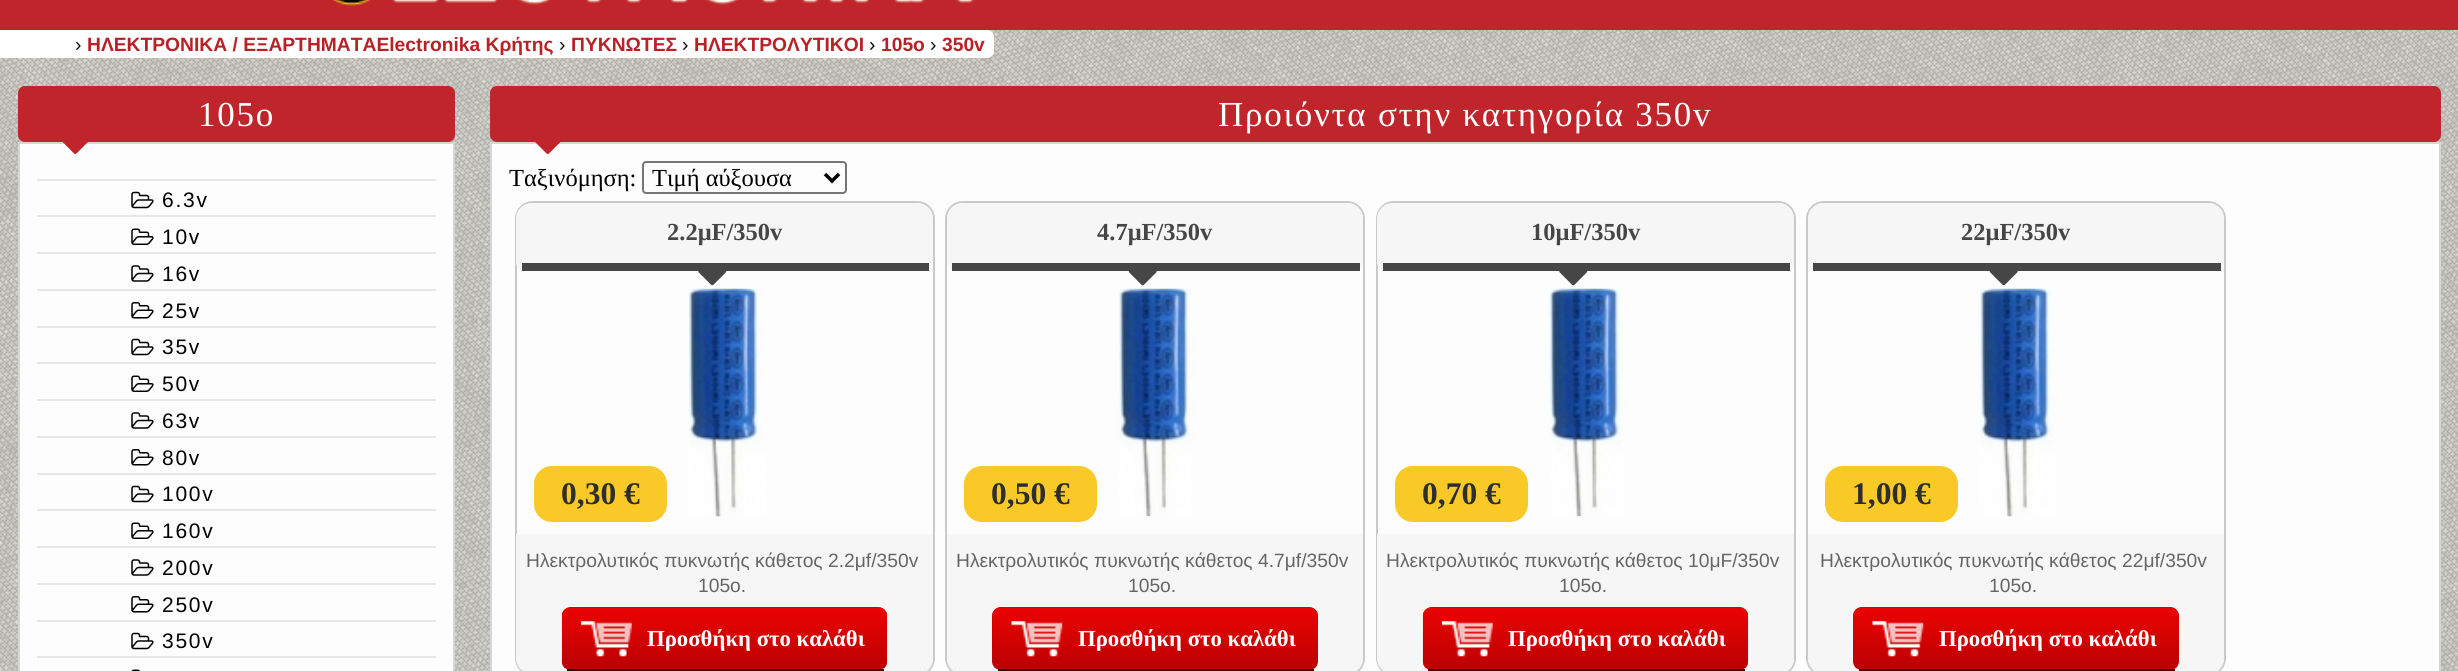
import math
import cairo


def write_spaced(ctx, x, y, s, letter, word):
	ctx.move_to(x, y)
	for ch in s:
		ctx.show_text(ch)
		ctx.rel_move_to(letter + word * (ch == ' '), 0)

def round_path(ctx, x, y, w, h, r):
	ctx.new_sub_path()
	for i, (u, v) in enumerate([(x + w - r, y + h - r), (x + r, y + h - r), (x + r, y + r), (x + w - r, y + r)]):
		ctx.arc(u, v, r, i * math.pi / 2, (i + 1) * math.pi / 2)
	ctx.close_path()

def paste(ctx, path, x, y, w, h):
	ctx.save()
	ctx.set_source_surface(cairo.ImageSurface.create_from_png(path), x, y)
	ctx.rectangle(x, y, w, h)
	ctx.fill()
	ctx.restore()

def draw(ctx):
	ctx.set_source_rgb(1, 1, 1)
	ctx.paint()
	paste(ctx, 'media/1.png', 0, 30, 2458, 641)
	ctx.set_source_rgb(0.749, 0.145, 0.169)
	ctx.rectangle(0, 0, 2458, 30)
	ctx.fill()
	paste(ctx, 'media/2.png', 332, 0, 642, 7)
	ctx.set_source_rgb(1, 1, 1)
	ctx.new_path()
	ctx.move_to(0, 30)
	ctx.line_to(987, 30)
	ctx.curve_to(991, 30, 994, 33, 994, 37)
	ctx.line_to(994, 51)
	ctx.curve_to(994, 55, 991, 58, 987, 58)
	ctx.line_to(0, 58)
	ctx.close_path()
	ctx.fill()
	ctx.select_font_face('Liberation Sans')
	ctx.set_font_size(19.25)
	ctx.set_source_rgb(0, 0, 0)
	ctx.move_to(75, 51)
	ctx.show_text('›')
	ctx.select_font_face('Liberation Sans', cairo.FONT_SLANT_NORMAL, cairo.FONT_WEIGHT_BOLD)
	ctx.set_source_rgb(0.729, 0.125, 0.145)
	ctx.move_to(87, 51)
	ctx.show_text('ΗΛΕΚΤΡΟΝΙΚΑ / ΕΞΑΡΤΗΜΑΤΑElectronika Κρήτης')
	ctx.select_font_face('Liberation Sans')
	ctx.set_source_rgb(0, 0, 0)
	ctx.move_to(559, 51)
	ctx.show_text('›')
	ctx.select_font_face('Liberation Sans', cairo.FONT_SLANT_NORMAL, cairo.FONT_WEIGHT_BOLD)
	ctx.set_source_rgb(0.729, 0.125, 0.145)
	ctx.move_to(571, 51)
	ctx.show_text('ΠΥΚΝΩΤΕΣ')
	ctx.select_font_face('Liberation Sans')
	ctx.set_source_rgb(0, 0, 0)
	ctx.move_to(682, 51)
	ctx.show_text('›')
	ctx.select_font_face('Liberation Sans', cairo.FONT_SLANT_NORMAL, cairo.FONT_WEIGHT_BOLD)
	ctx.set_source_rgb(0.729, 0.125, 0.145)
	ctx.move_to(694, 51)
	ctx.show_text('ΗΛΕΚΤΡΟΛΥΤΙΚΟΙ')
	ctx.select_font_face('Liberation Sans')
	ctx.set_source_rgb(0, 0, 0)
	ctx.move_to(869, 51)
	ctx.show_text('›')
	ctx.select_font_face('Liberation Sans', cairo.FONT_SLANT_NORMAL, cairo.FONT_WEIGHT_BOLD)
	ctx.set_source_rgb(0.729, 0.125, 0.145)
	ctx.move_to(881, 51)
	ctx.show_text('105ο')
	ctx.select_font_face('Liberation Sans')
	ctx.set_source_rgb(0, 0, 0)
	ctx.move_to(930, 51)
	ctx.show_text('›')
	ctx.select_font_face('Liberation Sans', cairo.FONT_SLANT_NORMAL, cairo.FONT_WEIGHT_BOLD)
	ctx.set_source_rgb(0.729, 0.125, 0.145)
	ctx.move_to(942, 51)
	ctx.show_text('350v')
	ctx.set_source_rgb(0.749, 0.145, 0.169)
	round_path(ctx, 18, 86, 437, 56, 7)
	ctx.fill()
	ctx.select_font_face('Liberation Serif')
	ctx.set_font_size(35)
	ctx.set_source_rgb(1, 1, 1)
	write_spaced(ctx, 198, 126, '105ο', 1.75, 0)
	ctx.set_source_rgb(0.992, 0.992, 0.992)
	ctx.rectangle(19, 143, 435, 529)
	ctx.fill_preserve()
	ctx.set_source_rgb(0.839, 0.839, 0.839)
	ctx.stroke()
	paste(ctx, 'media/3.png', 62, 142, 26, 12)
	ctx.set_source_rgb(0.906, 0.906, 0.906)
	ctx.rectangle(37, 179, 399, 2)
	ctx.fill()
	paste(ctx, 'media/4.png', 131, 191, 23, 18)
	ctx.select_font_face('Liberation Sans')
	ctx.set_font_size(21)
	ctx.set_source_rgb(0, 0, 0)
	write_spaced(ctx, 162, 207, '6.3v', 1.75, 0)
	ctx.set_source_rgb(0.906, 0.906, 0.906)
	ctx.rectangle(37, 215, 399, 2)
	ctx.fill()
	paste(ctx, 'media/5.png', 131, 228, 23, 17)
	ctx.set_source_rgb(0, 0, 0)
	write_spaced(ctx, 162, 244, '10v', 1.75, 0)
	ctx.set_source_rgb(0.906, 0.906, 0.906)
	ctx.rectangle(37, 252, 399, 2)
	ctx.fill()
	paste(ctx, 'media/6.png', 131, 265, 23, 17)
	ctx.set_source_rgb(0, 0, 0)
	write_spaced(ctx, 162, 281, '16v', 1.75, 0)
	ctx.set_source_rgb(0.906, 0.906, 0.906)
	ctx.rectangle(37, 289, 399, 2)
	ctx.fill()
	paste(ctx, 'media/7.png', 131, 302, 23, 17)
	ctx.set_source_rgb(0, 0, 0)
	write_spaced(ctx, 162, 318, '25v', 1.75, 0)
	ctx.set_source_rgb(0.906, 0.906, 0.906)
	ctx.rectangle(37, 326, 399, 2)
	ctx.fill()
	paste(ctx, 'media/4.png', 131, 338, 23, 18)
	ctx.set_source_rgb(0, 0, 0)
	write_spaced(ctx, 162, 354, '35v', 1.75, 0)
	ctx.set_source_rgb(0.906, 0.906, 0.906)
	ctx.rectangle(37, 362, 399, 2)
	ctx.fill()
	paste(ctx, 'media/5.png', 131, 375, 23, 17)
	ctx.set_source_rgb(0, 0, 0)
	write_spaced(ctx, 162, 391, '50v', 1.75, 0)
	ctx.set_source_rgb(0.906, 0.906, 0.906)
	ctx.rectangle(37, 399, 399, 2)
	ctx.fill()
	paste(ctx, 'media/6.png', 131, 412, 23, 17)
	ctx.set_source_rgb(0, 0, 0)
	write_spaced(ctx, 162, 428, '63v', 1.75, 0)
	ctx.set_source_rgb(0.906, 0.906, 0.906)
	ctx.rectangle(37, 436, 399, 2)
	ctx.fill()
	paste(ctx, 'media/8.png', 131, 449, 23, 17)
	ctx.set_source_rgb(0, 0, 0)
	write_spaced(ctx, 162, 465, '80v', 1.75, 0)
	ctx.set_source_rgb(0.906, 0.906, 0.906)
	ctx.rectangle(37, 473, 399, 2)
	ctx.fill()
	paste(ctx, 'media/9.png', 131, 485, 23, 18)
	ctx.set_source_rgb(0, 0, 0)
	write_spaced(ctx, 162, 501, '100v', 1.75, 0)
	ctx.set_source_rgb(0.906, 0.906, 0.906)
	ctx.rectangle(37, 509, 399, 2)
	ctx.fill()
	paste(ctx, 'media/5.png', 131, 522, 23, 17)
	ctx.set_source_rgb(0, 0, 0)
	write_spaced(ctx, 162, 538, '160v', 1.75, 0)
	ctx.set_source_rgb(0.906, 0.906, 0.906)
	ctx.rectangle(37, 546, 399, 2)
	ctx.fill()
	paste(ctx, 'media/6.png', 131, 559, 23, 17)
	ctx.set_source_rgb(0, 0, 0)
	write_spaced(ctx, 162, 575, '200v', 1.75, 0)
	ctx.set_source_rgb(0.906, 0.906, 0.906)
	ctx.rectangle(37, 583, 399, 2)
	ctx.fill()
	paste(ctx, 'media/7.png', 131, 596, 23, 17)
	ctx.set_source_rgb(0, 0, 0)
	write_spaced(ctx, 162, 612, '250v', 1.75, 0)
	ctx.set_source_rgb(0.906, 0.906, 0.906)
	ctx.rectangle(37, 620, 399, 2)
	ctx.fill()
	paste(ctx, 'media/4.png', 131, 632, 23, 18)
	ctx.set_source_rgb(0, 0, 0)
	write_spaced(ctx, 162, 648, '350v', 1.75, 0)
	ctx.set_source_rgb(0.906, 0.906, 0.906)
	ctx.rectangle(37, 656, 399, 2)
	ctx.fill()
	paste(ctx, 'media/10.png', 131, 669, 9, 2)
	ctx.set_source_rgb(0.749, 0.145, 0.169)
	round_path(ctx, 490, 86, 1951, 56, 7)
	ctx.fill()
	ctx.select_font_face('Liberation Serif')
	ctx.set_font_size(35)
	ctx.set_source_rgb(1, 1, 1)
	write_spaced(ctx, 1218, 126, 'Προιόντα στην κατηγορία 350v', 1.75, 0)
	ctx.set_source_rgb(0.992, 0.992, 0.992)
	ctx.rectangle(491, 143, 1949, 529)
	ctx.fill_preserve()
	ctx.set_source_rgb(0.839, 0.839, 0.839)
	ctx.stroke()
	paste(ctx, 'media/11.png', 535, 142, 26, 12)
	ctx.set_font_size(24.5)
	ctx.set_source_rgb(0, 0, 0)
	ctx.move_to(509, 186)
	ctx.show_text('Ταξινόμηση:')
	round_path(ctx, 643, 162, 203, 31, 3)
	ctx.set_source_rgb(0.463, 0.463, 0.463)
	ctx.stroke()
	ctx.new_path()
	ctx.move_to(825, 174)
	ctx.line_to(832, 181)
	ctx.line_to(839, 174)
	ctx.set_source_rgb(0, 0, 0)
	ctx.set_line_width(3.5)
	ctx.stroke()
	ctx.move_to(652, 186)
	ctx.show_text('Τιμή αύξουσα')
	round_path(ctx, 516, 202, 418, 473, 17)
	ctx.set_source_rgb(0.788, 0.788, 0.788)
	ctx.set_line_width(2)
	ctx.stroke()
	ctx.set_source_rgb(0.961, 0.961, 0.961)
	ctx.new_path()
	ctx.move_to(532, 203)
	ctx.line_to(917, 203)
	ctx.curve_to(926, 203, 933, 210, 933, 219)
	ctx.line_to(933, 262)
	ctx.curve_to(933, 267, 929, 271, 924, 271)
	ctx.line_to(525, 271)
	ctx.curve_to(520, 271, 516, 267, 516, 262)
	ctx.line_to(516, 219)
	ctx.curve_to(516, 210, 523, 203, 532, 203)
	ctx.close_path()
	ctx.fill()
	ctx.set_source_rgb(0.278, 0.275, 0.275)
	ctx.rectangle(522, 263, 407, 8)
	ctx.fill()
	ctx.select_font_face('Liberation Serif', cairo.FONT_SLANT_NORMAL, cairo.FONT_WEIGHT_BOLD)
	ctx.move_to(667, 240)
	ctx.show_text('2.2μF/350v')
	paste(ctx, 'media/12.png', 698, 271, 29, 15)
	paste(ctx, 'media/13.png', 688, 288, 78, 229)
	ctx.set_source_rgb(0.973, 0.788, 0.157)
	round_path(ctx, 534, 466, 133, 56, 18)
	ctx.fill()
	ctx.set_font_size(31.5)
	ctx.set_source_rgb(0.18, 0.18, 0.18)
	ctx.move_to(561, 504)
	ctx.show_text('0,30 €')
	ctx.set_source_rgb(0.961, 0.961, 0.961)
	ctx.rectangle(516, 534, 417, 70)
	ctx.fill()
	ctx.select_font_face('Liberation Sans')
	ctx.set_font_size(19.25)
	ctx.set_source_rgb(0.4, 0.4, 0.4)
	ctx.move_to(526, 567)
	ctx.show_text('Ηλεκτρολυτικός πυκνωτής κάθετος 2.2μf/350v')
	ctx.move_to(698, 592)
	ctx.show_text('105o.')
	ctx.set_source_rgb(0.961, 0.961, 0.961)
	ctx.new_path()
	ctx.move_to(516, 604)
	ctx.line_to(933, 604)
	ctx.line_to(933, 658)
	ctx.curve_to(933, 667, 926, 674, 917, 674)
	ctx.line_to(532, 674)
	ctx.curve_to(523, 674, 516, 667, 516, 658)
	ctx.close_path()
	ctx.fill()
	ctx.set_source_rgb(0.737, 0.008, 0.004)
	round_path(ctx, 562, 607, 325, 63, 9)
	ctx.fill()
	paste(ctx, 'media/14.png', 561, 607, 327, 62)
	ctx.set_source_rgb(0.227, 0, 0)
	ctx.rectangle(567, 669, 317, 2)
	ctx.fill()
	paste(ctx, 'media/15.png', 581, 621, 51, 36)
	ctx.select_font_face('Liberation Serif', cairo.FONT_SLANT_NORMAL, cairo.FONT_WEIGHT_BOLD)
	ctx.set_font_size(22.75)
	ctx.set_source_rgb(1, 1, 1)
	ctx.move_to(647, 646)
	ctx.show_text('Προσθήκη στο καλάθι')
	round_path(ctx, 946, 202, 418, 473, 17)
	ctx.set_source_rgb(0.788, 0.788, 0.788)
	ctx.stroke()
	ctx.set_source_rgb(0.961, 0.961, 0.961)
	ctx.new_path()
	ctx.move_to(963, 203)
	ctx.line_to(1347, 203)
	ctx.curve_to(1356, 203, 1363, 210, 1363, 219)
	ctx.line_to(1363, 262)
	ctx.curve_to(1363, 267, 1359, 271, 1354, 271)
	ctx.line_to(956, 271)
	ctx.curve_to(951, 271, 947, 267, 947, 262)
	ctx.line_to(947, 219)
	ctx.curve_to(947, 210, 954, 203, 963, 203)
	ctx.close_path()
	ctx.fill()
	ctx.set_source_rgb(0.278, 0.275, 0.275)
	ctx.rectangle(952, 263, 408, 8)
	ctx.fill()
	ctx.set_font_size(24.5)
	ctx.move_to(1097, 240)
	ctx.show_text('4.7μF/350v')
	paste(ctx, 'media/16.png', 1128, 271, 29, 15)
	paste(ctx, 'media/17.png', 1118, 288, 78, 229)
	ctx.set_source_rgb(0.973, 0.788, 0.157)
	round_path(ctx, 964, 466, 133, 56, 18)
	ctx.fill()
	ctx.set_font_size(31.5)
	ctx.set_source_rgb(0.18, 0.18, 0.18)
	ctx.move_to(991, 504)
	ctx.show_text('0,50 €')
	ctx.set_source_rgb(0.961, 0.961, 0.961)
	ctx.rectangle(947, 534, 416, 70)
	ctx.fill()
	ctx.select_font_face('Liberation Sans')
	ctx.set_font_size(19.25)
	ctx.set_source_rgb(0.4, 0.4, 0.4)
	ctx.move_to(956, 567)
	ctx.show_text('Ηλεκτρολυτικός πυκνωτής κάθετος 4.7μf/350v')
	ctx.move_to(1128, 592)
	ctx.show_text('105o.')
	ctx.set_source_rgb(0.961, 0.961, 0.961)
	ctx.new_path()
	ctx.move_to(947, 604)
	ctx.line_to(1363, 604)
	ctx.line_to(1363, 658)
	ctx.curve_to(1363, 667, 1356, 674, 1347, 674)
	ctx.line_to(963, 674)
	ctx.curve_to(954, 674, 947, 667, 947, 658)
	ctx.close_path()
	ctx.fill()
	ctx.set_source_rgb(0.737, 0.008, 0.004)
	round_path(ctx, 992, 607, 326, 63, 9)
	ctx.fill()
	paste(ctx, 'media/18.png', 992, 607, 326, 62)
	ctx.set_source_rgb(0.227, 0, 0)
	ctx.rectangle(998, 669, 316, 2)
	ctx.fill()
	paste(ctx, 'media/19.png', 1011, 621, 52, 36)
	ctx.select_font_face('Liberation Serif', cairo.FONT_SLANT_NORMAL, cairo.FONT_WEIGHT_BOLD)
	ctx.set_font_size(22.75)
	ctx.set_source_rgb(1, 1, 1)
	ctx.move_to(1078, 646)
	ctx.show_text('Προσθήκη στο καλάθι')
	round_path(ctx, 1377, 202, 418, 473, 17)
	ctx.set_source_rgb(0.788, 0.788, 0.788)
	ctx.stroke()
	ctx.set_source_rgb(0.961, 0.961, 0.961)
	ctx.new_path()
	ctx.move_to(1393, 203)
	ctx.line_to(1778, 203)
	ctx.curve_to(1787, 203, 1794, 210, 1794, 219)
	ctx.line_to(1794, 262)
	ctx.curve_to(1794, 267, 1790, 271, 1785, 271)
	ctx.line_to(1386, 271)
	ctx.curve_to(1381, 271, 1377, 267, 1377, 262)
	ctx.line_to(1377, 219)
	ctx.curve_to(1377, 210, 1384, 203, 1393, 203)
	ctx.close_path()
	ctx.fill()
	ctx.set_source_rgb(0.278, 0.275, 0.275)
	ctx.rectangle(1383, 263, 407, 8)
	ctx.fill()
	ctx.set_font_size(24.5)
	ctx.move_to(1531, 240)
	ctx.show_text('10μF/350v')
	paste(ctx, 'media/12.png', 1559, 271, 29, 15)
	paste(ctx, 'media/13.png', 1549, 288, 78, 229)
	ctx.set_source_rgb(0.973, 0.788, 0.157)
	round_path(ctx, 1395, 466, 133, 56, 18)
	ctx.fill()
	ctx.set_font_size(31.5)
	ctx.set_source_rgb(0.18, 0.18, 0.18)
	ctx.move_to(1422, 504)
	ctx.show_text('0,70 €')
	ctx.set_source_rgb(0.961, 0.961, 0.961)
	ctx.rectangle(1377, 534, 417, 70)
	ctx.fill()
	ctx.select_font_face('Liberation Sans')
	ctx.set_font_size(19.25)
	ctx.set_source_rgb(0.4, 0.4, 0.4)
	ctx.move_to(1386, 567)
	ctx.show_text('Ηλεκτρολυτικός πυκνωτής κάθετος 10μF/350v')
	ctx.move_to(1559, 592)
	ctx.show_text('105o.')
	ctx.set_source_rgb(0.961, 0.961, 0.961)
	ctx.new_path()
	ctx.move_to(1377, 604)
	ctx.line_to(1794, 604)
	ctx.line_to(1794, 658)
	ctx.curve_to(1794, 667, 1787, 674, 1778, 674)
	ctx.line_to(1393, 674)
	ctx.curve_to(1384, 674, 1377, 667, 1377, 658)
	ctx.close_path()
	ctx.fill()
	ctx.set_source_rgb(0.737, 0.008, 0.004)
	round_path(ctx, 1423, 607, 325, 63, 9)
	ctx.fill()
	paste(ctx, 'media/20.png', 1422, 607, 327, 62)
	ctx.set_source_rgb(0.227, 0, 0)
	ctx.rectangle(1428, 669, 317, 2)
	ctx.fill()
	paste(ctx, 'media/21.png', 1442, 621, 51, 36)
	ctx.select_font_face('Liberation Serif', cairo.FONT_SLANT_NORMAL, cairo.FONT_WEIGHT_BOLD)
	ctx.set_font_size(22.75)
	ctx.set_source_rgb(1, 1, 1)
	ctx.move_to(1508, 646)
	ctx.show_text('Προσθήκη στο καλάθι')
	round_path(ctx, 1807, 202, 418, 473, 17)
	ctx.set_source_rgb(0.788, 0.788, 0.788)
	ctx.stroke()
	ctx.set_source_rgb(0.961, 0.961, 0.961)
	ctx.new_path()
	ctx.move_to(1824, 203)
	ctx.line_to(2208, 203)
	ctx.curve_to(2217, 203, 2224, 210, 2224, 219)
	ctx.line_to(2224, 262)
	ctx.curve_to(2224, 267, 2220, 271, 2215, 271)
	ctx.line_to(1817, 271)
	ctx.curve_to(1812, 271, 1808, 267, 1808, 262)
	ctx.line_to(1808, 219)
	ctx.curve_to(1808, 210, 1815, 203, 1824, 203)
	ctx.close_path()
	ctx.fill()
	ctx.set_source_rgb(0.278, 0.275, 0.275)
	ctx.rectangle(1813, 263, 408, 8)
	ctx.fill()
	ctx.set_font_size(24.5)
	ctx.move_to(1961, 240)
	ctx.show_text('22μF/350v')
	paste(ctx, 'media/16.png', 1989, 271, 29, 15)
	paste(ctx, 'media/22.png', 1979, 288, 78, 229)
	ctx.set_source_rgb(0.973, 0.788, 0.157)
	round_path(ctx, 1825, 466, 133, 56, 18)
	ctx.fill()
	ctx.set_font_size(31.5)
	ctx.set_source_rgb(0.18, 0.18, 0.18)
	ctx.move_to(1852, 504)
	ctx.show_text('1,00 €')
	ctx.set_source_rgb(0.961, 0.961, 0.961)
	ctx.rectangle(1808, 534, 416, 70)
	ctx.fill()
	ctx.select_font_face('Liberation Sans')
	ctx.set_font_size(19.25)
	ctx.set_source_rgb(0.4, 0.4, 0.4)
	ctx.move_to(1820, 567)
	ctx.show_text('Ηλεκτρολυτικός πυκνωτής κάθετος 22μf/350v')
	ctx.move_to(1989, 592)
	ctx.show_text('105o.')
	ctx.set_source_rgb(0.961, 0.961, 0.961)
	ctx.new_path()
	ctx.move_to(1808, 604)
	ctx.line_to(2224, 604)
	ctx.line_to(2224, 658)
	ctx.curve_to(2224, 667, 2217, 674, 2208, 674)
	ctx.line_to(1824, 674)
	ctx.curve_to(1815, 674, 1808, 667, 1808, 658)
	ctx.close_path()
	ctx.fill()
	ctx.set_source_rgb(0.737, 0.008, 0.004)
	round_path(ctx, 1853, 607, 326, 63, 9)
	ctx.fill()
	paste(ctx, 'media/23.png', 1853, 607, 326, 62)
	ctx.set_source_rgb(0.227, 0, 0)
	ctx.rectangle(1859, 669, 316, 2)
	ctx.fill()
	paste(ctx, 'media/24.png', 1872, 621, 52, 36)
	ctx.select_font_face('Liberation Serif', cairo.FONT_SLANT_NORMAL, cairo.FONT_WEIGHT_BOLD)
	ctx.set_font_size(22.75)
	ctx.set_source_rgb(1, 1, 1)
	ctx.move_to(1939, 646)
	ctx.show_text('Προσθήκη στο καλάθι')


surface = cairo.ImageSurface(cairo.FORMAT_RGB24, 2458, 671)
ctx = cairo.Context(surface)
options = cairo.FontOptions()
options.set_hint_metrics(cairo.HINT_METRICS_OFF)
options.set_hint_style(cairo.HINT_STYLE_NONE)
ctx.set_font_options(options)
ctx.set_miter_limit(4)
draw(ctx)
surface.write_to_png('image.png')
